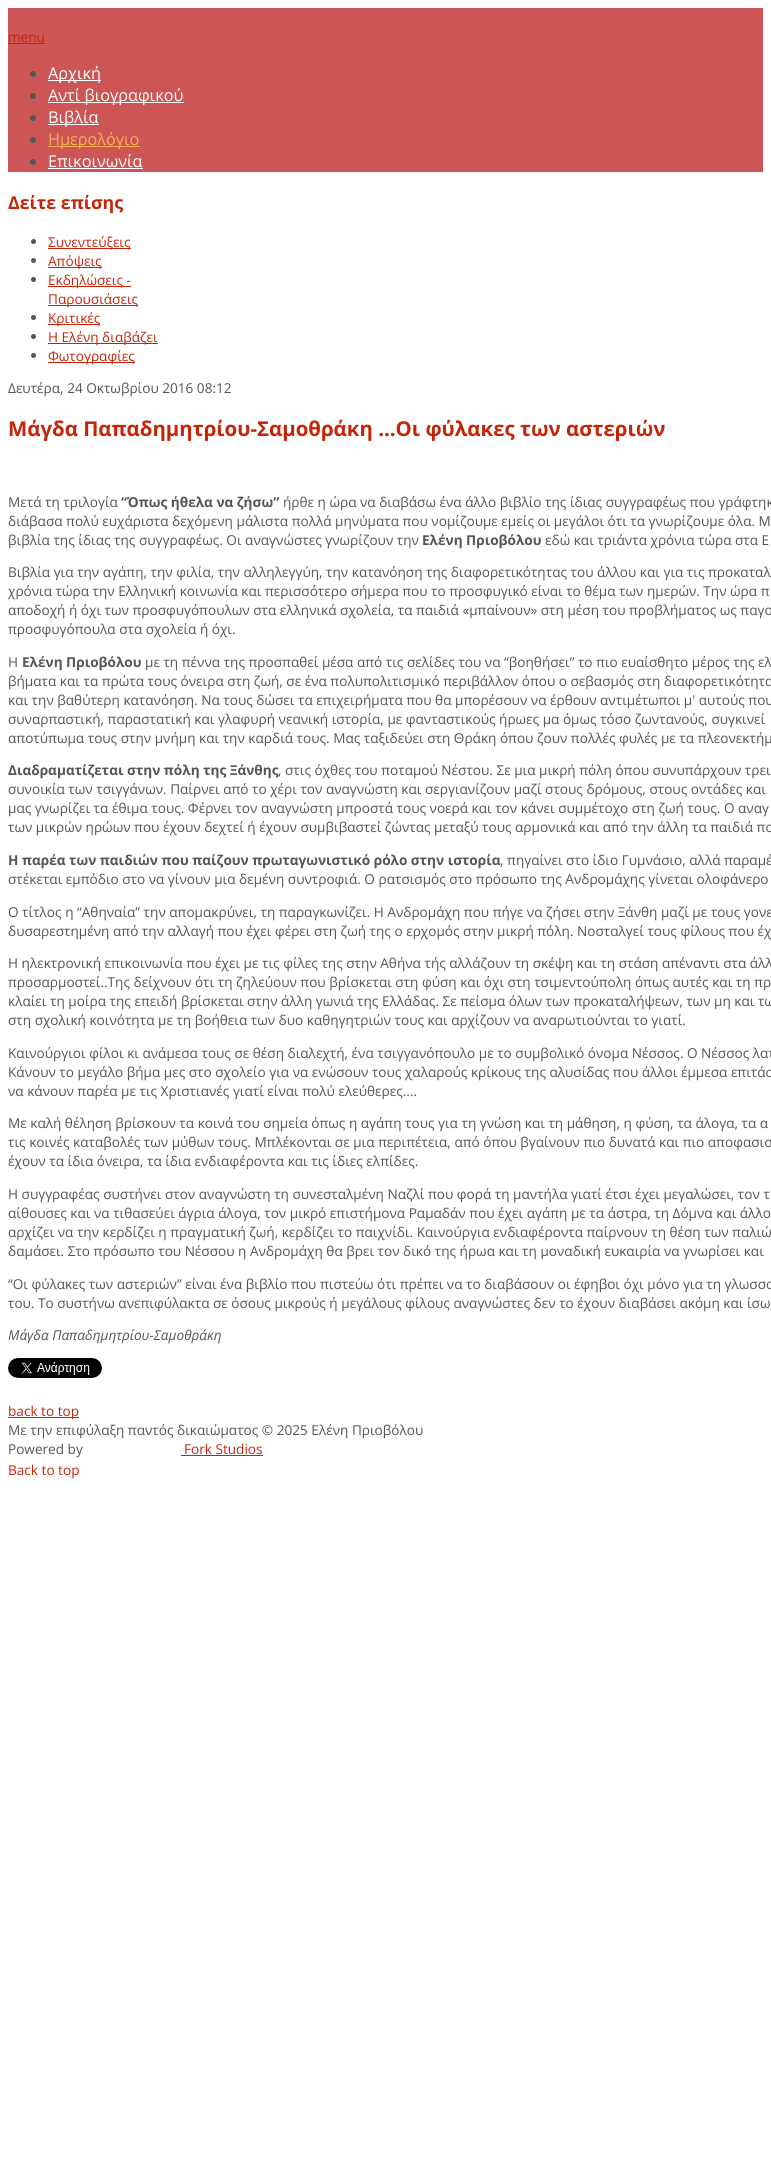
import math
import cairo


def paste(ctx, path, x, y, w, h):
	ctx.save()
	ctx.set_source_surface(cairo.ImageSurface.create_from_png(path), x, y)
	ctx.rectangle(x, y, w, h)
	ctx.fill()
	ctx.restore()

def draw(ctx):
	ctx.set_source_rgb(1, 1, 1)
	ctx.paint()
	ctx.set_source_rgb(0.804, 0.333, 0.333)
	ctx.rectangle(8, 8, 755, 164)
	ctx.fill()
	ctx.select_font_face('Open Sans')
	ctx.set_font_size(13.6)
	ctx.set_source_rgb(0.776, 0.141, 0.031)
	ctx.move_to(8, 42)
	ctx.show_text('menu')
	ctx.rectangle(8, 43, 37, 1)
	ctx.fill()
	ctx.set_source_rgb(0.333, 0.333, 0.333)
	ctx.arc(33, 74, 3, 0, 2 * math.pi)
	ctx.fill()
	ctx.set_source_rgb(1, 1, 1)
	ctx.rectangle(48, 80, 53, 1)
	ctx.fill()
	ctx.set_font_size(16.25)
	ctx.move_to(48, 79)
	ctx.show_text('Αρχική')
	ctx.set_source_rgb(0.333, 0.333, 0.333)
	ctx.new_path()
	ctx.arc(33, 96, 3, 0, 2 * math.pi)
	ctx.fill()
	ctx.set_source_rgb(1, 1, 1)
	ctx.rectangle(48, 102, 136, 1)
	ctx.fill()
	ctx.move_to(48, 101)
	ctx.show_text('Αντί βιογραφικού')
	ctx.set_source_rgb(0.333, 0.333, 0.333)
	ctx.new_path()
	ctx.arc(33, 118, 3, 0, 2 * math.pi)
	ctx.fill()
	ctx.set_source_rgb(1, 1, 1)
	ctx.rectangle(48, 124, 51, 1)
	ctx.fill()
	ctx.move_to(48, 123)
	ctx.show_text('Βιβλία')
	ctx.set_source_rgb(0.333, 0.333, 0.333)
	ctx.new_path()
	ctx.arc(33, 140, 3, 0, 2 * math.pi)
	ctx.fill()
	ctx.set_source_rgb(0.965, 0.686, 0.302)
	ctx.rectangle(48, 146, 92, 1)
	ctx.fill()
	ctx.move_to(48, 145)
	ctx.show_text('Ημερολόγιο')
	ctx.set_source_rgb(0.333, 0.333, 0.333)
	ctx.new_path()
	ctx.arc(33, 162, 3, 0, 2 * math.pi)
	ctx.fill()
	ctx.set_source_rgb(1, 1, 1)
	ctx.move_to(48, 167)
	ctx.show_text('Επικοινωνία')
	ctx.rectangle(48, 168, 95, 1)
	ctx.fill()
	ctx.select_font_face('Open Sans', cairo.FONT_SLANT_NORMAL, cairo.FONT_WEIGHT_BOLD)
	ctx.set_font_size(17.75)
	ctx.set_source_rgb(0.776, 0.141, 0.031)
	ctx.move_to(8, 209)
	ctx.show_text('Δείτε επίσης')
	ctx.set_source_rgb(0.333, 0.333, 0.333)
	ctx.new_path()
	ctx.arc(33.5, 241.5, 2.5, 0, 2 * math.pi)
	ctx.fill()
	ctx.set_source_rgb(0.776, 0.141, 0.031)
	ctx.rectangle(48, 248, 83, 1)
	ctx.fill()
	ctx.select_font_face('Open Sans')
	ctx.set_font_size(13.6)
	ctx.move_to(48, 247)
	ctx.show_text('Συνεντεύξεις')
	ctx.set_source_rgb(0.333, 0.333, 0.333)
	ctx.new_path()
	ctx.arc(33.5, 260.5, 2.5, 0, 2 * math.pi)
	ctx.fill()
	ctx.set_source_rgb(0.776, 0.141, 0.031)
	ctx.rectangle(48, 267, 54, 1)
	ctx.fill()
	ctx.move_to(48, 266)
	ctx.show_text('Απόψεις')
	ctx.set_source_rgb(0.333, 0.333, 0.333)
	ctx.new_path()
	ctx.arc(33.5, 279.5, 2.5, 0, 2 * math.pi)
	ctx.fill()
	ctx.set_source_rgb(0.776, 0.141, 0.031)
	ctx.rectangle(48, 286, 83, 1)
	ctx.fill()
	ctx.move_to(48, 285)
	ctx.show_text('Εκδηλώσεις -')
	ctx.rectangle(48, 305, 90, 1)
	ctx.fill()
	ctx.move_to(48, 304)
	ctx.show_text('Παρουσιάσεις')
	ctx.set_source_rgb(0.333, 0.333, 0.333)
	ctx.new_path()
	ctx.arc(33.5, 317.5, 2.5, 0, 2 * math.pi)
	ctx.fill()
	ctx.set_source_rgb(0.776, 0.141, 0.031)
	ctx.rectangle(48, 324, 52, 1)
	ctx.fill()
	ctx.move_to(48, 323)
	ctx.show_text('Κριτικές')
	ctx.set_source_rgb(0.333, 0.333, 0.333)
	ctx.new_path()
	ctx.arc(33.5, 336.5, 2.5, 0, 2 * math.pi)
	ctx.fill()
	ctx.set_source_rgb(0.776, 0.141, 0.031)
	ctx.rectangle(48, 343, 110, 1)
	ctx.fill()
	ctx.move_to(48, 342)
	ctx.show_text('Η Ελένη διαβάζει')
	ctx.set_source_rgb(0.333, 0.333, 0.333)
	ctx.new_path()
	ctx.arc(33.5, 355.5, 2.5, 0, 2 * math.pi)
	ctx.fill()
	ctx.set_source_rgb(0.776, 0.141, 0.031)
	ctx.rectangle(48, 362, 87, 1)
	ctx.fill()
	ctx.move_to(48, 361)
	ctx.show_text('Φωτογραφίες')
	ctx.set_source_rgb(0.333, 0.333, 0.333)
	ctx.move_to(8, 393)
	ctx.show_text('Δευτέρα, 24 Οκτωβρίου 2016 08:12')
	ctx.select_font_face('Open Sans', cairo.FONT_SLANT_NORMAL, cairo.FONT_WEIGHT_BOLD)
	ctx.set_font_size(20.4)
	ctx.set_source_rgb(0.776, 0.141, 0.031)
	ctx.move_to(8, 436)
	ctx.show_text('Μάγδα Παπαδημητρίου-Σαμοθράκη ...Οι φύλακες των αστεριών')
	ctx.select_font_face('Open Sans')
	ctx.set_font_size(13.6)
	ctx.set_source_rgb(0.333, 0.333, 0.333)
	ctx.move_to(8, 507)
	ctx.show_text('Μετά τη τριλογία')
	ctx.select_font_face('Open Sans', cairo.FONT_SLANT_NORMAL, cairo.FONT_WEIGHT_BOLD)
	ctx.move_to(121, 507)
	ctx.show_text('“Όπως ήθελα να ζήσω”')
	ctx.select_font_face('Open Sans')
	for x, y, s in [
		(283, 507, 'ήρθε η ώρα να διαβάσω ένα άλλο βιβλίο της ίδιας συγγραφέως που γράφτηκ'),
		(8, 526, 'διάβασα πολύ ευχάριστα δεχόμενη μάλιστα πολλά μηνύματα που νομίζουμε εμείς οι μεγάλοι ότι τα γνωρίζουμε όλα. Μ'),
		(8, 545, 'βιβλία της ίδιας της συγγραφέως. Οι αναγνώστες γνωρίζουν την'),
	]:
		ctx.move_to(x, y)
		ctx.show_text(s)
	ctx.select_font_face('Open Sans', cairo.FONT_SLANT_NORMAL, cairo.FONT_WEIGHT_BOLD)
	ctx.move_to(422, 545)
	ctx.show_text('Ελένη Πριοβόλου')
	ctx.select_font_face('Open Sans')
	for x, y, s in [
		(545, 545, 'εδώ και τριάντα χρόνια τώρα στα Ε'),
		(8, 577, 'Βιβλία για την αγάπη, την φιλία, την αλληλεγγύη, την κατανόηση της διαφορετικότητας του άλλου και για τις προκαταλ'),
		(8, 596, 'χρόνια τώρα την Ελληνική κοινωνία και περισσότερο σήμερα που το προσφυγικό είναι το θέμα των ημερών. Την ώρα π'),
		(8, 615, 'αποδοχή ή όχι των προσφυγόπουλων στα ελληνικά σχολεία, τα παιδιά «μπαίνουν» στη μέση του προβλήματος ως παγο'),
		(8, 634, 'προσφυγόπουλα στα σχολεία ή όχι.'),
		(8, 667, 'Η'),
	]:
		ctx.move_to(x, y)
		ctx.show_text(s)
	ctx.select_font_face('Open Sans', cairo.FONT_SLANT_NORMAL, cairo.FONT_WEIGHT_BOLD)
	ctx.move_to(22, 667)
	ctx.show_text('Ελένη Πριοβόλου')
	ctx.select_font_face('Open Sans')
	for x, y, s in [
		(145, 667, 'με τη πέννα της προσπαθεί μέσα από τις σελίδες του να “βοηθήσει” το πιο ευαίσθητο μέρος της ελ'),
		(8, 686, 'βήματα και τα πρώτα τους όνειρα στη ζωή, σε ένα πολυπολιτισμικό περιβάλλον όπου ο σεβασμός στη διαφορετικότητα'),
		(8, 705, 'και την βαθύτερη κατανόηση. Να τους δώσει τα επιχειρήματα που θα μπορέσουν να έρθουν αντιμέτωποι μ\' αυτούς που'),
		(8, 724, 'συναρπαστική, παραστατική και γλαφυρή νεανική ιστορία, με φανταστικούς ήρωες μα όμως τόσο ζωντανούς, συγκινεί'),
		(8, 743, 'αποτύπωμα τους στην μνήμη και την καρδιά τους. Μας ταξιδεύει στη Θράκη όπου ζουν πολλές φυλές με τα πλεονεκτήμ'),
	]:
		ctx.move_to(x, y)
		ctx.show_text(s)
	ctx.select_font_face('Open Sans', cairo.FONT_SLANT_NORMAL, cairo.FONT_WEIGHT_BOLD)
	ctx.move_to(8, 775)
	ctx.show_text('Διαδραματίζεται στην πόλη της Ξάνθης')
	ctx.select_font_face('Open Sans')
	for x, y, s in [
		(278, 775, ', στις όχθες του ποταμού Νέστου. Σε μια μικρή πόλη όπου συνυπάρχουν τρει'),
		(8, 794, 'συνοικία των τσιγγάνων. Παίρνει από το χέρι τον αναγνώστη και σεργιανίζουν μαζί στους δρόμους, στους οντάδες και'),
		(8, 813, 'μας γνωρίζει τα έθιμα τους. Φέρνει τον αναγνώστη μπροστά τους νοερά και τον κάνει συμμέτοχο στη ζωή τους. Ο αναγ'),
		(8, 832, 'των μικρών ηρώων που έχουν δεχτεί ή έχουν συμβιβαστεί ζώντας μεταξύ τους αρμονικά και από την άλλη τα παιδιά πο'),
	]:
		ctx.move_to(x, y)
		ctx.show_text(s)
	ctx.select_font_face('Open Sans', cairo.FONT_SLANT_NORMAL, cairo.FONT_WEIGHT_BOLD)
	ctx.move_to(8, 865)
	ctx.show_text('Η παρέα των παιδιών που παίζουν πρωταγωνιστικό ρόλο στην ιστορία')
	ctx.select_font_face('Open Sans')
	for x, y, s in [
		(500, 865, ', πηγαίνει στο ίδιο Γυμνάσιο, αλλά παραμέ'),
		(8, 884, 'στέκεται εμπόδιο στο να γίνουν μια δεμένη συντροφιά. Ο ρατσισμός στο πρόσωπο της Ανδρομάχης γίνεται ολοφάνερο'),
		(8, 917, 'Ο τίτλος η “Αθηναία” την απομακρύνει, τη παραγκωνίζει. Η Ανδρομάχη που πήγε να ζήσει στην Ξάνθη μαζί με τους γονε'),
		(8, 936, 'δυσαρεστημένη από την αλλαγή που έχει φέρει στη ζωή της ο ερχομός στην μικρή πόλη. Νοσταλγεί τους φίλους που έχ'),
		(8, 968, 'Η ηλεκτρονική επικοινωνία που έχει με τις φίλες της στην Αθήνα τής αλλάζουν τη σκέψη και τη στάση απέναντι στα άλλ'),
		(8, 987, 'προσαρμοστεί..Της δείχνουν ότι τη ζηλεύουν που βρίσκεται στη φύση και όχι στη τσιμεντούπολη όπως αυτές και τη πρ'),
		(8, 1006, 'κλαίει τη μοίρα της επειδή βρίσκεται στην άλλη γωνιά της Ελλάδας. Σε πείσμα όλων των προκαταλήψεων, των μη και τω'),
		(8, 1025, 'στη σχολική κοινότητα με τη βοήθεια των δυο καθηγητριών τους και αρχίζουν να αναρωτιούνται το γιατί.'),
		(8, 1058, 'Καινούργιοι φίλοι κι ανάμεσα τους σε θέση διαλεχτή, ένα τσιγγανόπουλο με το συμβολικό όνομα Νέσσος. Ο Νέσσος λατ'),
		(8, 1077, 'Κάνουν το μεγάλο βήμα μες στο σχολείο για να ενώσουν τους χαλαρούς κρίκους της αλυσίδας που άλλοι έμμεσα επιτάσ'),
		(8, 1096, 'να κάνουν παρέα με τις Χριστιανές γιατί είναι πολύ ελεύθερες....'),
		(8, 1128, 'Με καλή θέληση βρίσκουν τα κοινά του σημεία όπως η αγάπη τους για τη γνώση και τη μάθηση, η φύση, τα άλογα, τα α'),
		(8, 1147, 'τις κοινές καταβολές των μύθων τους. Μπλέκονται σε μια περιπέτεια, από όπου βγαίνουν πιο δυνατά και πιο αποφασισ'),
		(8, 1166, 'έχουν τα ίδια όνειρα, τα ίδια ενδιαφέροντα και τις ίδιες ελπίδες.'),
		(8, 1199, 'Η συγγραφέας συστήνει στον αναγνώστη τη συνεσταλμένη Ναζλί που φορά τη μαντήλα γιατί έτσι έχει μεγαλώσει, τον τ'),
		(8, 1218, 'αίθουσες και να τιθασεύει άγρια άλογα, τον μικρό επιστήμονα Ραμαδάν που έχει αγάπη με τα άστρα, τη Δόμνα και άλλο'),
		(8, 1237, 'αρχίζει να την κερδίζει η πραγματική ζωή, κερδίζει το παιχνίδι. Καινούργια ενδιαφέροντα παίρνουν τη θέση των παλιώ'),
		(8, 1256, 'δαμάσει. Στο πρόσωπο του Νέσσου η Ανδρομάχη θα βρει τον δικό της ήρωα και τη μοναδική ευκαιρία να γνωρίσει και'),
		(8, 1289, '“Οι φύλακες των αστεριών” είναι ένα βιβλίο που πιστεύω ότι πρέπει να το διαβάσουν οι έφηβοι όχι μόνο για τη γλωσσο'),
		(8, 1308, 'του. Το συστήνω ανεπιφύλακτα σε όσους μικρούς ή μεγάλους φίλους αναγνώστες δεν το έχουν διαβάσει ακόμη και ίσω'),
	]:
		ctx.move_to(x, y)
		ctx.show_text(s)
	ctx.select_font_face('Open Sans', cairo.FONT_SLANT_ITALIC)
	ctx.move_to(8, 1340)
	ctx.show_text('Μάγδα Παπαδημητρίου-Σαμοθράκη')
	paste(ctx, 'media/1.png', 8, 1358, 94, 20)
	ctx.set_source_rgb(0.776, 0.141, 0.031)
	ctx.rectangle(8, 1417, 71, 1)
	ctx.fill()
	ctx.select_font_face('Open Sans')
	ctx.move_to(8, 1416)
	ctx.show_text('back to top')
	ctx.set_source_rgb(0.333, 0.333, 0.333)
	ctx.move_to(8, 1435)
	ctx.show_text('Με την επιφύλαξη παντός δικαιώματος © 2025 Ελένη Πριοβόλου')
	ctx.move_to(8, 1454)
	ctx.show_text('Powered by')
	ctx.set_source_rgb(0.776, 0.141, 0.031)
	ctx.move_to(184, 1454)
	ctx.show_text('Fork Studios')
	ctx.rectangle(181, 1455, 82, 1)
	ctx.fill()
	ctx.move_to(8, 1475)
	ctx.show_text('Back to top')


surface = cairo.ImageSurface(cairo.FORMAT_RGB24, 771, 2180)
ctx = cairo.Context(surface)
options = cairo.FontOptions()
options.set_hint_metrics(cairo.HINT_METRICS_OFF)
options.set_hint_style(cairo.HINT_STYLE_NONE)
ctx.set_font_options(options)
ctx.set_miter_limit(4)
draw(ctx)
surface.write_to_png('image.png')
